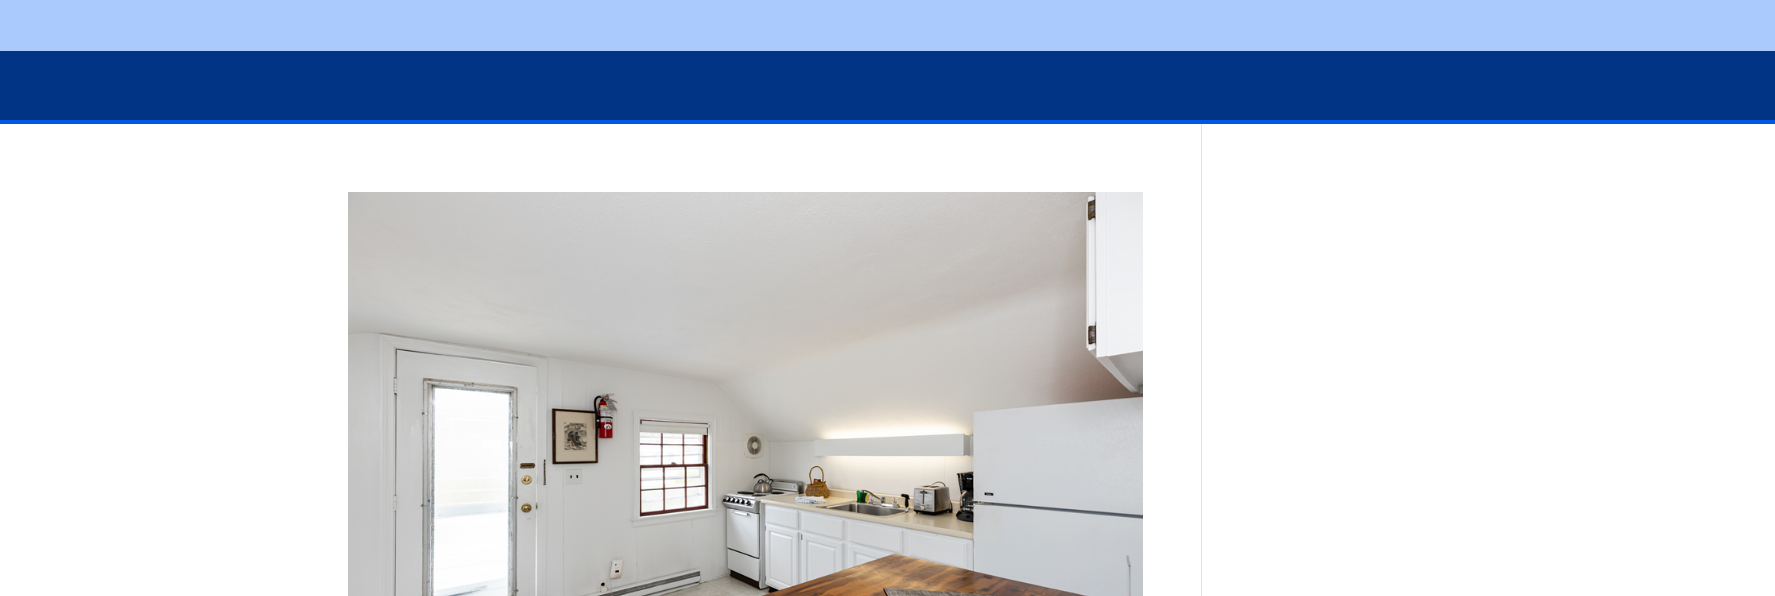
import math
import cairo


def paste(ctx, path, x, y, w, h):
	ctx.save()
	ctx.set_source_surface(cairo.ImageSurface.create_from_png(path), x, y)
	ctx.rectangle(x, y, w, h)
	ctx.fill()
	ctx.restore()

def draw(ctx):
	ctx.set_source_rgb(1, 1, 1)
	ctx.paint()
	ctx.set_source_rgb(0.667, 0.792, 0.992)
	ctx.rectangle(0, 0, 1775, 51)
	ctx.fill()
	ctx.set_source_rgb(0.004, 0.204, 0.522)
	ctx.rectangle(0, 51, 1775, 69)
	ctx.fill()
	ctx.set_source_rgb(0.004, 0.345, 0.898)
	ctx.rectangle(0, 120, 1775, 4)
	ctx.fill()
	paste(ctx, 'media/1.png', 348, 192, 795, 404)
	ctx.set_source_rgb(0.886, 0.886, 0.886)
	ctx.rectangle(1201, 124, 1, 472)
	ctx.fill()


surface = cairo.ImageSurface(cairo.FORMAT_RGB24, 1775, 596)
ctx = cairo.Context(surface)
options = cairo.FontOptions()
options.set_hint_metrics(cairo.HINT_METRICS_OFF)
options.set_hint_style(cairo.HINT_STYLE_NONE)
ctx.set_font_options(options)
ctx.set_miter_limit(4)
draw(ctx)
surface.write_to_png('image.png')
